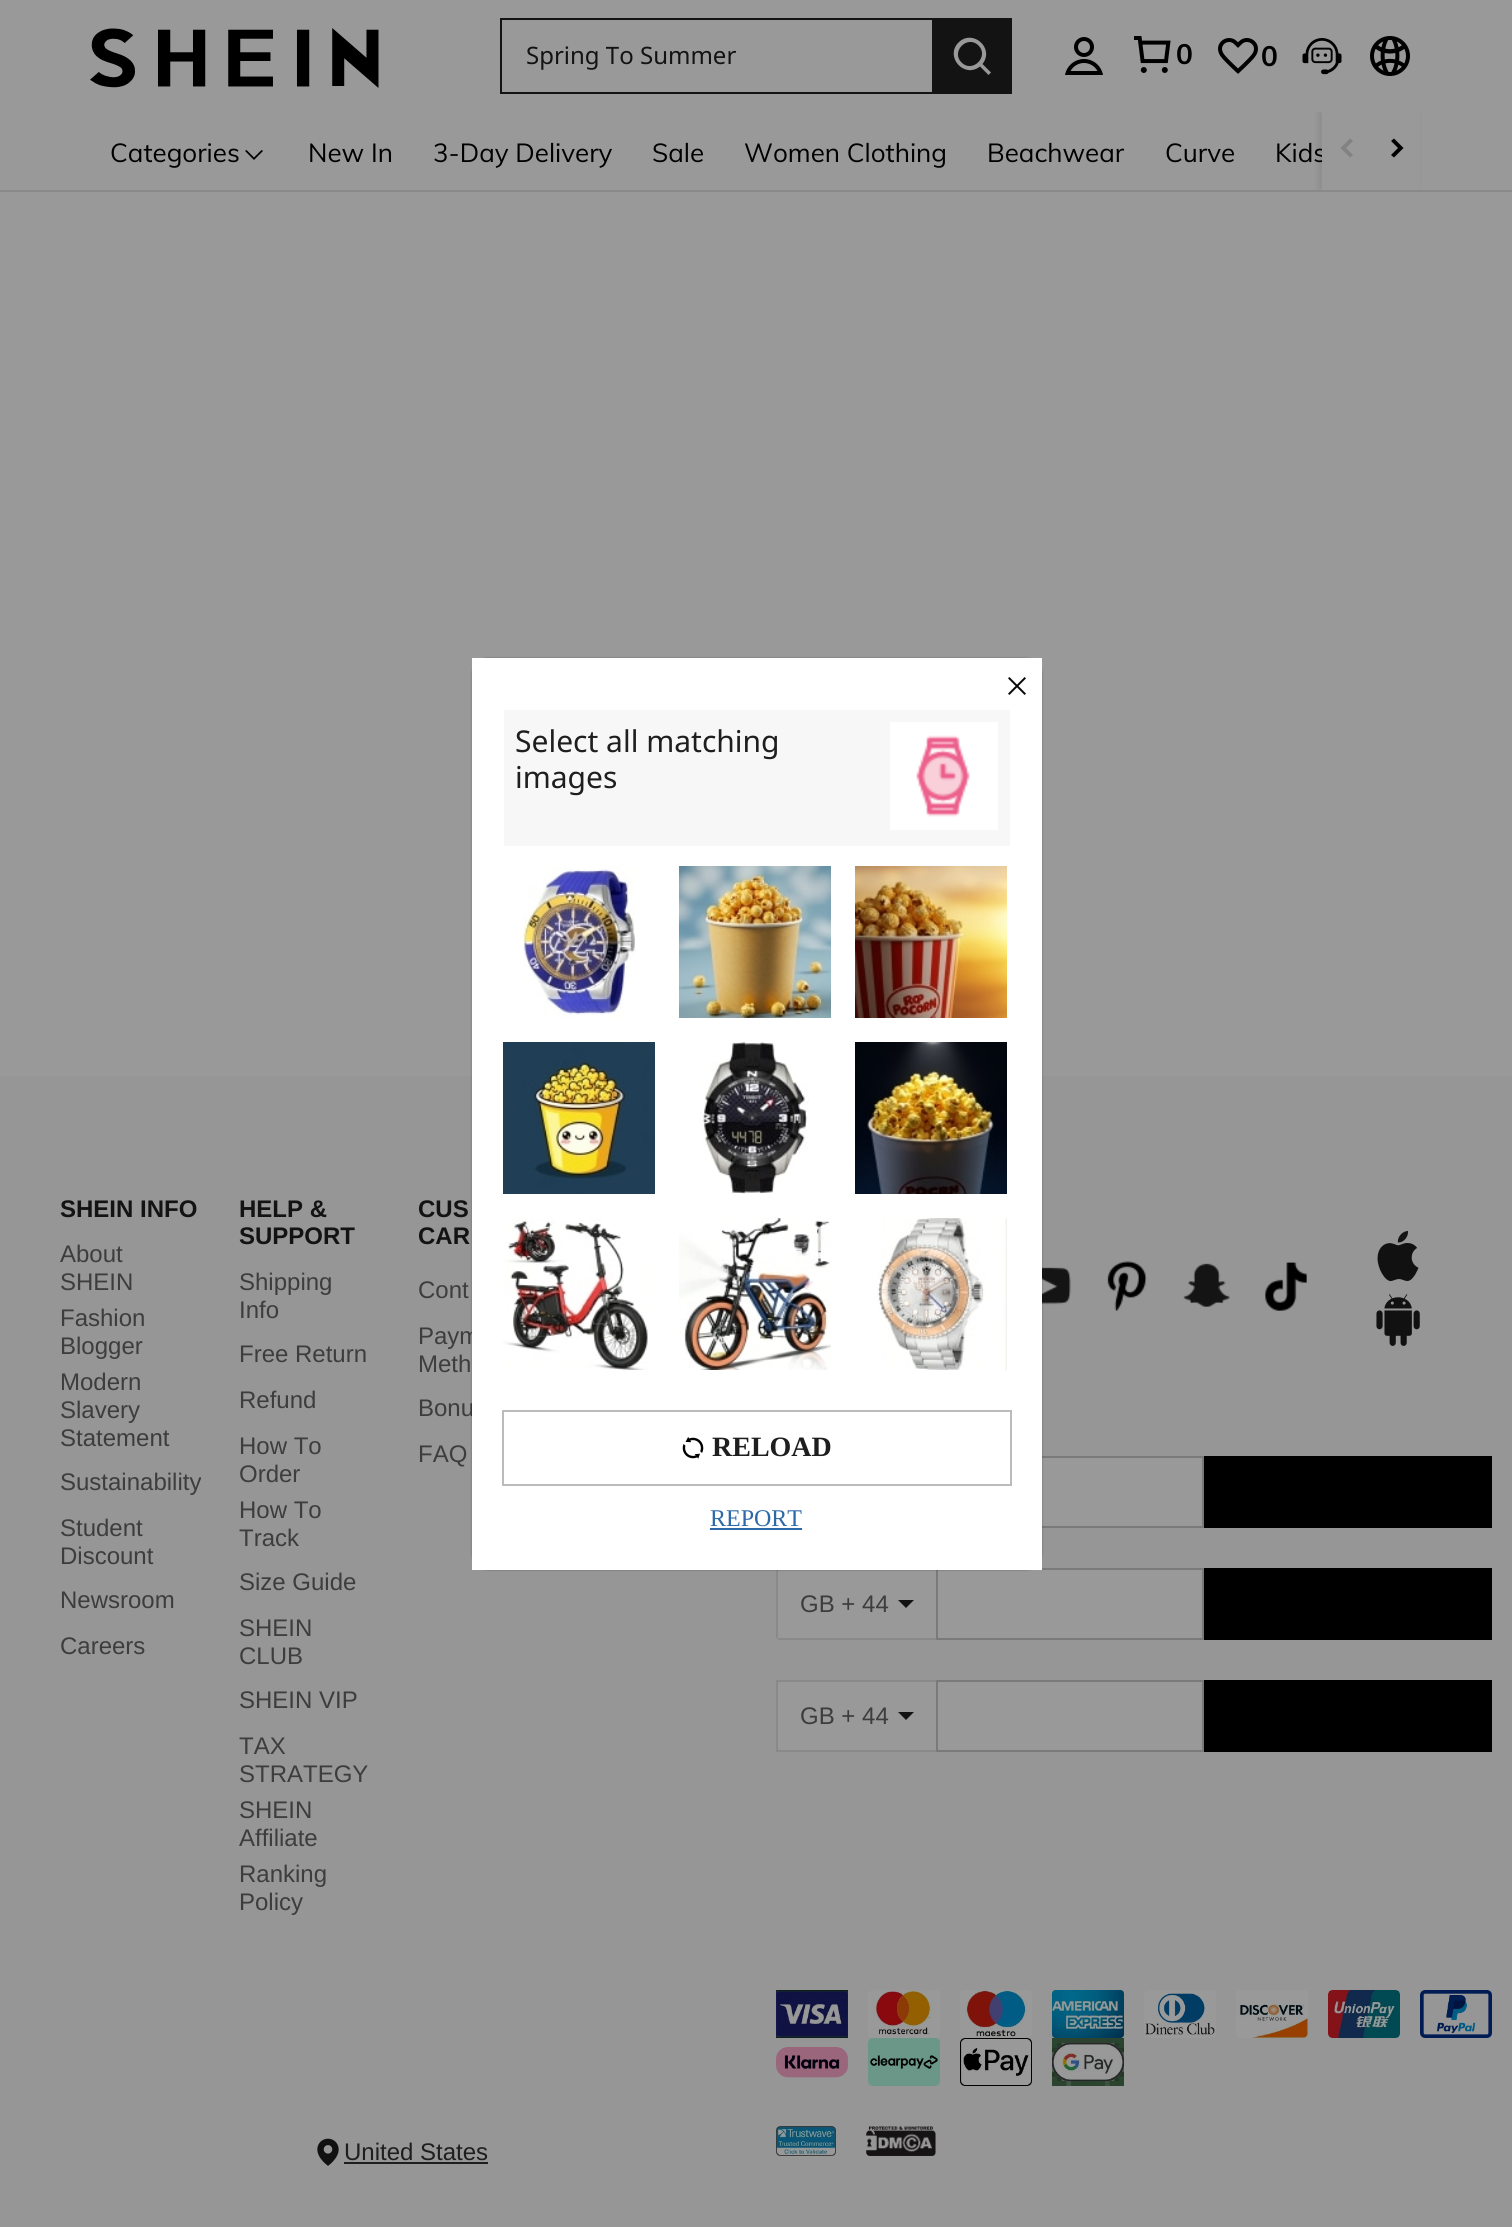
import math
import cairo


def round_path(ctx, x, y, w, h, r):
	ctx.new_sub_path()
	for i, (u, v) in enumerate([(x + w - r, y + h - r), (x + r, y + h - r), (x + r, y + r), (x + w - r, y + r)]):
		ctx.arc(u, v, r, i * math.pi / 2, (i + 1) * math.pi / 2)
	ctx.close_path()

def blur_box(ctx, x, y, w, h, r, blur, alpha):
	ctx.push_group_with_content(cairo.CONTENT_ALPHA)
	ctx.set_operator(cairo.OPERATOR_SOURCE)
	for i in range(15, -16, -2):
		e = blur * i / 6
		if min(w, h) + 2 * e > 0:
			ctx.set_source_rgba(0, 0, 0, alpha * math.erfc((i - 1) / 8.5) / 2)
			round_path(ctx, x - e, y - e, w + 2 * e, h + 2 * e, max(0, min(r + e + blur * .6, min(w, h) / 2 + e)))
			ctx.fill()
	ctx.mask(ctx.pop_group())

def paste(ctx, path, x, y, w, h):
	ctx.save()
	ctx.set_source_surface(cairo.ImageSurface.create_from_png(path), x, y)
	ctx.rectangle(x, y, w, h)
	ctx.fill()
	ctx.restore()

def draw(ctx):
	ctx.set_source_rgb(0.6, 0.6, 0.6)
	ctx.paint()
	paste(ctx, 'media/1.png', 90, 28, 289, 60)
	ctx.set_source_rgb(0.078, 0.078, 0.078)
	ctx.rectangle(500, 18, 432, 2)
	ctx.rectangle(500, 92, 432, 2)
	ctx.rectangle(500, 18, 2, 76)
	ctx.fill()
	ctx.select_font_face('Noto Sans')
	ctx.set_font_size(24)
	ctx.move_to(526, 64)
	ctx.show_text('Spring To Summer')
	ctx.rectangle(932, 18, 80, 76)
	ctx.fill()
	ctx.set_source_rgb(0.6, 0.6, 0.6)
	ctx.set_fill_rule(cairo.FILL_RULE_EVEN_ODD)
	ctx.new_path()
	ctx.move_to(958.5, 42.5)
	ctx.curve_to(972.5, 28.5, 995, 48, 982.5, 64)
	ctx.line_to(991, 72.5)
	ctx.line_to(988.5, 75)
	ctx.line_to(980, 66.5)
	ctx.curve_to(964, 79, 944.5, 56.5, 958.5, 42.5)
	ctx.close_path()
	ctx.move_to(978.5, 45.5)
	ctx.curve_to(967.5, 34.5, 950.5, 51.5, 961.5, 62.5)
	ctx.curve_to(972.5, 73.5, 989.5, 56.5, 978.5, 45.5)
	ctx.close_path()
	ctx.fill()
	paste(ctx, 'media/2.png', 1065, 37, 38, 38)
	paste(ctx, 'media/3.png', 1134, 36, 37, 37)
	ctx.select_font_face('Muli', cairo.FONT_SLANT_NORMAL, cairo.FONT_WEIGHT_BOLD)
	ctx.set_font_size(28)
	ctx.set_source_rgb(0, 0, 0)
	ctx.move_to(1176, 64)
	ctx.show_text('0')
	paste(ctx, 'media/4.png', 1218, 38, 40, 36)
	ctx.move_to(1261, 66)
	ctx.show_text('0')
	paste(ctx, 'media/5.png', 1302, 38, 40, 37)
	paste(ctx, 'media/6.png', 1370, 36, 40, 40)
	ctx.set_source_rgb(0.537, 0.537, 0.537)
	ctx.rectangle(0, 190, 1512, 2)
	ctx.fill()
	ctx.select_font_face('Muli')
	ctx.set_font_size(26)
	ctx.set_source_rgb(0, 0, 0)
	ctx.move_to(110, 162)
	ctx.show_text('Categories')
	ctx.set_fill_rule(cairo.FILL_RULE_WINDING)
	ctx.new_path()
	ctx.move_to(261.5, 150)
	ctx.line_to(263, 151)
	ctx.line_to(254, 160)
	ctx.line_to(245, 151)
	ctx.line_to(246.5, 150)
	ctx.line_to(254, 157.5)
	ctx.close_path()
	ctx.fill()
	for x, y, s in [
		(308, 162, 'New In'),
		(433, 162, '3-Day Delivery'),
		(652, 162, 'Sale'),
		(744, 162, 'Women Clothing'),
		(987, 162, 'Beachwear'),
		(1165, 162, 'Curve'),
		(1275, 162, 'Kids'),
	]:
		ctx.move_to(x, y)
		ctx.show_text(s)
	ctx.save()
	ctx.rectangle(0, 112, 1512, 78)
	ctx.clip()
	ctx.set_source_rgb(0, 0, 0)
	blur_box(ctx, 1318, 112, 100, 78, 0, 3, 0.08)
	ctx.restore()
	ctx.set_source_rgb(0.6, 0.6, 0.6)
	ctx.rectangle(1322, 112, 98, 78)
	ctx.fill()
	ctx.set_source_rgb(0.51, 0.51, 0.51)
	ctx.set_fill_rule(cairo.FILL_RULE_EVEN_ODD)
	ctx.new_path()
	ctx.move_to(1350, 138.5)
	ctx.line_to(1353, 141)
	ctx.line_to(1346, 148)
	ctx.line_to(1353, 155)
	ctx.line_to(1350, 157.5)
	ctx.line_to(1340.5, 148)
	ctx.close_path()
	ctx.fill()
	ctx.set_source_rgb(0, 0, 0)
	ctx.new_path()
	ctx.move_to(1391, 141)
	ctx.line_to(1394, 138.5)
	ctx.line_to(1403.5, 148)
	ctx.line_to(1394, 157.5)
	ctx.line_to(1391, 155)
	ctx.line_to(1398, 148)
	ctx.close_path()
	ctx.fill()
	ctx.set_source_rgb(0.588, 0.588, 0.588)
	ctx.rectangle(0, 1076, 1512, 1151)
	ctx.fill()
	ctx.select_font_face('Liberation Sans', cairo.FONT_SLANT_NORMAL, cairo.FONT_WEIGHT_BOLD)
	ctx.set_font_size(24)
	ctx.set_source_rgb(0.078, 0.078, 0.078)
	ctx.move_to(60, 1217)
	ctx.show_text('SHEIN INFO')
	ctx.select_font_face('Liberation Sans')
	ctx.set_source_rgb(0.239, 0.239, 0.239)
	for x, y, s in [
		(60, 1262, 'About'),
		(60, 1290, 'SHEIN'),
		(60, 1326, 'Fashion'),
		(60, 1354, 'Blogger'),
		(60, 1390, 'Modern'),
		(60, 1418, 'Slavery'),
		(60, 1446, 'Statement'),
		(60, 1490, 'Sustainability'),
		(60, 1536, 'Student'),
		(60, 1564, 'Discount'),
		(60, 1608, 'Newsroom'),
		(60, 1654, 'Careers'),
	]:
		ctx.move_to(x, y)
		ctx.show_text(s)
	ctx.select_font_face('Liberation Sans', cairo.FONT_SLANT_NORMAL, cairo.FONT_WEIGHT_BOLD)
	ctx.set_source_rgb(0.078, 0.078, 0.078)
	ctx.move_to(239, 1217)
	ctx.show_text('HELP &')
	ctx.move_to(239, 1244)
	ctx.show_text('SUPPORT')
	ctx.select_font_face('Liberation Sans')
	ctx.set_source_rgb(0.239, 0.239, 0.239)
	for x, y, s in [
		(239, 1290, 'Shipping'),
		(239, 1318, 'Info'),
		(239, 1362, 'Free Return'),
		(239, 1408, 'Refund'),
		(239, 1454, 'How To'),
		(239, 1482, 'Order'),
		(239, 1518, 'How To'),
		(239, 1546, 'Track'),
		(239, 1590, 'Size Guide'),
		(239, 1636, 'SHEIN'),
		(239, 1664, 'CLUB'),
		(239, 1708, 'SHEIN VIP'),
		(239, 1754, 'TAX'),
		(239, 1782, 'STRATEGY'),
		(239, 1818, 'SHEIN'),
		(239, 1846, 'Affiliate'),
		(239, 1882, 'Ranking'),
		(239, 1910, 'Policy'),
	]:
		ctx.move_to(x, y)
		ctx.show_text(s)
	ctx.select_font_face('Liberation Sans', cairo.FONT_SLANT_NORMAL, cairo.FONT_WEIGHT_BOLD)
	ctx.set_source_rgb(0.078, 0.078, 0.078)
	ctx.move_to(418, 1217)
	ctx.show_text('CUS')
	ctx.move_to(418, 1244)
	ctx.show_text('CAR')
	ctx.select_font_face('Liberation Sans')
	ctx.set_source_rgb(0.239, 0.239, 0.239)
	for x, y, s in [
		(418, 1298, 'Cont'),
		(418, 1344, 'Paym'),
		(418, 1372, 'Meth'),
		(418, 1416, 'Bonu'),
		(418, 1462, 'FAQ'),
	]:
		ctx.move_to(x, y)
		ctx.show_text(s)
	paste(ctx, 'media/7.png', 1042, 1267, 29, 38)
	paste(ctx, 'media/8.png', 1107, 1261, 40, 50)
	paste(ctx, 'media/9.png', 1183, 1263, 47, 44)
	paste(ctx, 'media/10.png', 1265, 1262, 42, 49)
	paste(ctx, 'media/11.png', 1377, 1230, 42, 52)
	paste(ctx, 'media/12.png', 1376, 1294, 44, 52)
	ctx.set_source_rgb(0.6, 0.6, 0.6)
	ctx.rectangle(1042, 1458, 160, 68)
	ctx.fill()
	ctx.rectangle(777, 1457, 426, 70)
	ctx.set_source_rgb(0.478, 0.478, 0.478)
	ctx.stroke()
	ctx.set_source_rgb(0, 0, 0)
	ctx.rectangle(1204, 1456, 288, 72)
	ctx.fill()
	ctx.set_source_rgb(0.6, 0.6, 0.6)
	ctx.rectangle(778, 1570, 158, 68)
	ctx.fill()
	ctx.set_source_rgb(0.537, 0.537, 0.537)
	ctx.rectangle(776, 1638, 160, 2)
	ctx.rectangle(776, 1568, 2, 72)
	ctx.fill()
	ctx.set_source_rgb(0.239, 0.239, 0.239)
	ctx.move_to(800, 1612)
	ctx.show_text('GB + 44')
	ctx.set_source_rgb(0.078, 0.078, 0.078)
	ctx.set_fill_rule(cairo.FILL_RULE_WINDING)
	ctx.new_path()
	ctx.move_to(898, 1600)
	ctx.line_to(914, 1600)
	ctx.line_to(906, 1608)
	ctx.close_path()
	ctx.fill()
	ctx.set_source_rgb(0.6, 0.6, 0.6)
	ctx.rectangle(937, 1569, 266, 70)
	ctx.fill_preserve()
	ctx.set_source_rgb(0.478, 0.478, 0.478)
	ctx.stroke()
	ctx.set_source_rgb(0, 0, 0)
	ctx.rectangle(1204, 1568, 288, 72)
	ctx.fill()
	ctx.set_source_rgb(0.6, 0.6, 0.6)
	ctx.rectangle(778, 1682, 158, 68)
	ctx.fill()
	ctx.set_source_rgb(0.537, 0.537, 0.537)
	ctx.rectangle(776, 1680, 160, 2)
	ctx.rectangle(776, 1750, 160, 2)
	ctx.rectangle(776, 1680, 2, 72)
	ctx.fill()
	ctx.set_source_rgb(0.239, 0.239, 0.239)
	ctx.move_to(800, 1724)
	ctx.show_text('GB + 44')
	ctx.set_source_rgb(0.078, 0.078, 0.078)
	ctx.new_path()
	ctx.move_to(898, 1712)
	ctx.line_to(914, 1712)
	ctx.line_to(906, 1720)
	ctx.close_path()
	ctx.fill()
	ctx.set_source_rgb(0.6, 0.6, 0.6)
	ctx.rectangle(937, 1681, 266, 70)
	ctx.fill_preserve()
	ctx.set_source_rgb(0.478, 0.478, 0.478)
	ctx.stroke()
	ctx.set_source_rgb(0, 0, 0)
	ctx.rectangle(1204, 1680, 288, 72)
	ctx.fill()
	paste(ctx, 'media/13.png', 776, 1990, 72, 48)
	paste(ctx, 'media/14.png', 868, 1990, 72, 48)
	paste(ctx, 'media/15.png', 960, 1990, 72, 48)
	paste(ctx, 'media/16.png', 1052, 1990, 72, 48)
	paste(ctx, 'media/17.png', 1144, 1990, 72, 48)
	paste(ctx, 'media/18.png', 1236, 1990, 72, 48)
	paste(ctx, 'media/19.png', 1328, 1990, 72, 48)
	paste(ctx, 'media/20.png', 1420, 1990, 72, 48)
	paste(ctx, 'media/21.png', 776, 2047, 72, 31)
	paste(ctx, 'media/22.png', 868, 2038, 72, 48)
	paste(ctx, 'media/23.png', 960, 2038, 72, 48)
	paste(ctx, 'media/24.png', 1052, 2038, 72, 48)
	paste(ctx, 'media/25.png', 317, 2138, 22, 28)
	ctx.set_source_rgb(0.118, 0.118, 0.118)
	ctx.move_to(344, 2160)
	ctx.show_text('United States')
	ctx.rectangle(344, 2162, 144, 2)
	ctx.fill()
	paste(ctx, 'media/26.png', 776, 2126, 60, 30)
	paste(ctx, 'media/27.png', 866, 2126, 70, 30)
	ctx.set_source_rgb(0, 0, 0)
	blur_box(ctx, 472, 658, 570, 912, 16, 1, 0.3)
	ctx.set_source_rgb(1, 1, 1)
	ctx.rectangle(472, 658, 570, 912)
	ctx.fill()
	paste(ctx, 'media/28.png', 1008, 677, 18, 18)
	ctx.set_source_rgb(0.965, 0.965, 0.965)
	ctx.rectangle(504, 710, 506, 136)
	ctx.fill()
	ctx.select_font_face('Noto Sans')
	ctx.set_font_size(30)
	ctx.set_source_rgb(0.118, 0.118, 0.118)
	ctx.move_to(515, 752)
	ctx.show_text('Select all matching')
	ctx.move_to(515, 788)
	ctx.show_text('images')
	ctx.set_source_rgb(1, 1, 1)
	ctx.rectangle(890, 722, 108, 108)
	ctx.fill()
	paste(ctx, 'media/29.png', 916, 735, 54, 82)
	paste(ctx, 'media/30.png', 522, 866, 113, 152)
	paste(ctx, 'media/31.png', 679, 866, 152, 152)
	paste(ctx, 'media/32.png', 855, 866, 152, 152)
	paste(ctx, 'media/33.png', 503, 1042, 152, 152)
	paste(ctx, 'media/34.png', 699, 1042, 110, 152)
	paste(ctx, 'media/35.png', 855, 1042, 152, 152)
	paste(ctx, 'media/36.png', 503, 1218, 147, 152)
	paste(ctx, 'media/37.png', 679, 1218, 152, 152)
	paste(ctx, 'media/38.png', 877, 1218, 130, 152)
	ctx.rectangle(503, 1411, 508, 74)
	ctx.set_source_rgb(0.733, 0.733, 0.733)
	ctx.stroke()
	paste(ctx, 'media/39.png', 682, 1437, 22, 22)
	ctx.select_font_face('Liberation Serif', cairo.FONT_SLANT_NORMAL, cairo.FONT_WEIGHT_BOLD)
	ctx.set_font_size(28)
	ctx.set_source_rgb(0.118, 0.118, 0.118)
	ctx.move_to(712, 1456)
	ctx.show_text('RELOAD')
	ctx.select_font_face('Liberation Serif')
	ctx.set_font_size(24)
	ctx.set_source_rgb(0.176, 0.408, 0.659)
	ctx.move_to(710, 1526)
	ctx.show_text('REPORT')
	ctx.rectangle(710, 1528, 92, 2)
	ctx.fill()


surface = cairo.ImageSurface(cairo.FORMAT_RGB24, 1512, 2227)
ctx = cairo.Context(surface)
options = cairo.FontOptions()
options.set_hint_metrics(cairo.HINT_METRICS_OFF)
options.set_hint_style(cairo.HINT_STYLE_NONE)
ctx.set_font_options(options)
ctx.set_miter_limit(4)
draw(ctx)
surface.write_to_png('image.png')
